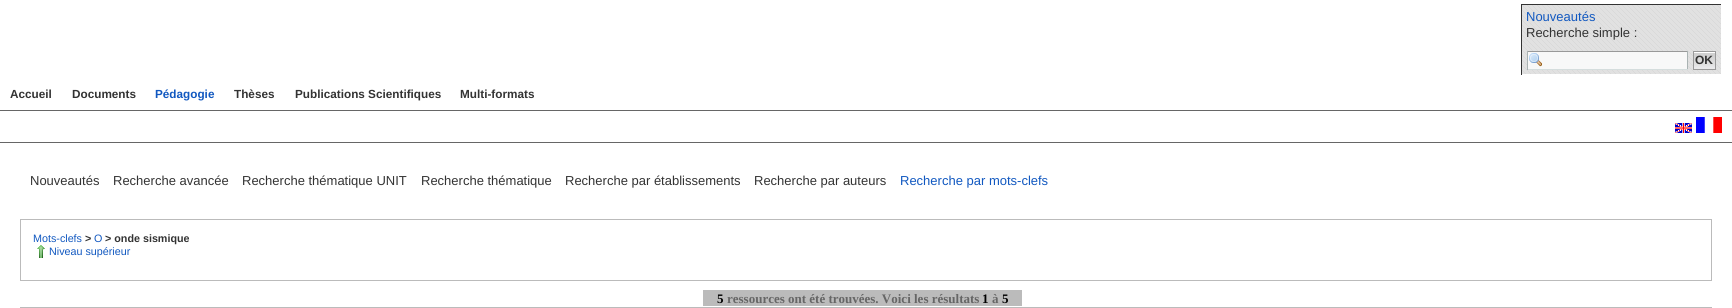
import math
import cairo


def paste(ctx, path, x, y, w, h):
	ctx.save()
	ctx.set_source_surface(cairo.ImageSurface.create_from_png(path), x, y)
	ctx.rectangle(x, y, w, h)
	ctx.fill()
	ctx.restore()

def draw(ctx):
	ctx.set_source_rgb(1, 1, 1)
	ctx.paint()
	paste(ctx, 'media/1.png', 1522, 5, 199, 69)
	ctx.set_source_rgb(0.2, 0.2, 0.2)
	ctx.rectangle(1521, 4, 201, 1)
	ctx.fill()
	ctx.set_source_rgb(1, 1, 1)
	ctx.rectangle(1721, 4, 1, 1)
	ctx.fill()
	ctx.set_source_rgb(0.2, 0.2, 0.2)
	ctx.rectangle(1521, 4, 1, 71)
	ctx.fill()
	ctx.select_font_face('Liberation Sans')
	ctx.set_font_size(13)
	ctx.set_source_rgb(0.067, 0.345, 0.753)
	ctx.move_to(1526, 21)
	ctx.show_text('Nouveautés')
	ctx.set_source_rgb(0.2, 0.2, 0.2)
	ctx.move_to(1526, 37)
	ctx.show_text('Recherche simple :')
	ctx.set_source_rgb(0.969, 0.969, 0.969)
	ctx.rectangle(1528, 52, 159, 17)
	ctx.fill()
	paste(ctx, 'media/2.png', 1529, 53, 13, 14)
	ctx.set_source_rgb(0.6, 0.6, 0.6)
	ctx.rectangle(1527, 51, 161, 1)
	ctx.fill()
	ctx.set_source_rgb(0.667, 0.702, 0.702)
	ctx.rectangle(1687, 51, 1, 19)
	ctx.fill()
	ctx.set_source_rgb(0.835, 0.867, 0.867)
	ctx.rectangle(1527, 69, 161, 1)
	ctx.fill()
	ctx.set_source_rgb(0.667, 0.702, 0.702)
	ctx.rectangle(1527, 51, 1, 19)
	ctx.fill()
	paste(ctx, 'media/3.png', 1694, 52, 21, 17)
	ctx.rectangle(1693.5, 51.5, 22, 18)
	ctx.set_source_rgb(0.6, 0.6, 0.6)
	ctx.set_line_width(1)
	ctx.stroke()
	ctx.select_font_face('Liberation Sans', cairo.FONT_SLANT_NORMAL, cairo.FONT_WEIGHT_BOLD)
	ctx.set_font_size(12)
	ctx.set_source_rgb(0.2, 0.2, 0.2)
	ctx.move_to(1695, 64)
	ctx.show_text('OK')
	ctx.set_source_rgb(0.4, 0.4, 0.4)
	ctx.rectangle(0, 110, 1732, 1)
	ctx.fill()
	ctx.set_font_size(11.75)
	ctx.set_source_rgb(0.2, 0.2, 0.2)
	ctx.move_to(10, 98)
	ctx.show_text('Accueil')
	ctx.move_to(72, 98)
	ctx.show_text('Documents')
	ctx.set_source_rgb(0.067, 0.345, 0.753)
	ctx.move_to(155, 98)
	ctx.show_text('Pédagogie')
	ctx.set_source_rgb(0.2, 0.2, 0.2)
	for x, y, s in [
		(234, 98, 'Thèses'),
		(295, 98, 'Publications Scientifiques'),
		(460, 98, 'Multi-formats'),
	]:
		ctx.move_to(x, y)
		ctx.show_text(s)
	ctx.set_source_rgb(0.4, 0.4, 0.4)
	ctx.rectangle(0, 142, 1732, 1)
	ctx.fill()
	paste(ctx, 'media/4.png', 1675, 123, 17, 10)
	paste(ctx, 'media/5.png', 1696, 117, 26, 16)
	ctx.select_font_face('Liberation Sans')
	ctx.set_font_size(13)
	ctx.set_source_rgb(0.2, 0.2, 0.2)
	for x, y, s in [
		(30, 185, 'Nouveautés'),
		(113, 185, 'Recherche avancée'),
		(242, 185, 'Recherche thématique UNIT'),
		(421, 185, 'Recherche thématique'),
		(565, 185, 'Recherche par établissements'),
		(754, 185, 'Recherche par auteurs'),
	]:
		ctx.move_to(x, y)
		ctx.show_text(s)
	ctx.set_source_rgb(0.067, 0.345, 0.753)
	ctx.move_to(900, 185)
	ctx.show_text('Recherche par mots-clefs')
	ctx.rectangle(20.5, 219.5, 1691, 61)
	ctx.set_source_rgb(0.733, 0.733, 0.733)
	ctx.stroke()
	ctx.set_font_size(10.75)
	ctx.set_source_rgb(0.067, 0.345, 0.753)
	ctx.move_to(33, 242)
	ctx.show_text('Mots-clefs')
	ctx.select_font_face('Liberation Sans', cairo.FONT_SLANT_NORMAL, cairo.FONT_WEIGHT_BOLD)
	ctx.set_source_rgb(0.2, 0.2, 0.2)
	ctx.move_to(85, 242)
	ctx.show_text('>')
	ctx.select_font_face('Liberation Sans')
	ctx.set_source_rgb(0.067, 0.345, 0.753)
	ctx.move_to(94, 242)
	ctx.show_text('O')
	ctx.select_font_face('Liberation Sans', cairo.FONT_SLANT_NORMAL, cairo.FONT_WEIGHT_BOLD)
	ctx.set_source_rgb(0.2, 0.2, 0.2)
	ctx.move_to(105, 242)
	ctx.show_text('> onde sismique')
	paste(ctx, 'media/6.png', 37, 245, 8, 13)
	ctx.select_font_face('Liberation Sans')
	ctx.set_source_rgb(0.067, 0.345, 0.753)
	ctx.move_to(49, 255)
	ctx.show_text('Niveau supérieur')
	ctx.set_source_rgb(0.733, 0.733, 0.733)
	ctx.rectangle(704, 291, 317, 15)
	ctx.fill()
	ctx.select_font_face('Liberation Serif', cairo.FONT_SLANT_NORMAL, cairo.FONT_WEIGHT_BOLD)
	ctx.set_font_size(13)
	ctx.set_source_rgb(0, 0, 0)
	ctx.move_to(717, 303)
	ctx.show_text('5')
	ctx.set_source_rgb(0.733, 0.733, 0.733)
	ctx.rectangle(703, 290, 319, 1)
	ctx.fill()
	ctx.rectangle(703, 290, 1, 16)
	ctx.fill()
	ctx.set_source_rgb(0.4, 0.4, 0.4)
	ctx.move_to(727, 303)
	ctx.show_text('ressources ont été trouvées. Voici les résultats')
	ctx.set_source_rgb(0, 0, 0)
	ctx.move_to(982, 303)
	ctx.show_text('1')
	ctx.set_source_rgb(0.4, 0.4, 0.4)
	ctx.move_to(992, 303)
	ctx.show_text('à')
	ctx.set_source_rgb(0, 0, 0)
	ctx.move_to(1002, 303)
	ctx.show_text('5')
	ctx.set_source_rgb(0.733, 0.733, 0.733)
	ctx.rectangle(1021, 290, 1, 16)
	ctx.fill()
	ctx.rectangle(20.5, 307.5, 1691, 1)
	ctx.stroke()


surface = cairo.ImageSurface(cairo.FORMAT_RGB24, 1732, 308)
ctx = cairo.Context(surface)
options = cairo.FontOptions()
options.set_hint_metrics(cairo.HINT_METRICS_OFF)
options.set_hint_style(cairo.HINT_STYLE_NONE)
ctx.set_font_options(options)
ctx.set_miter_limit(4)
draw(ctx)
surface.write_to_png('image.png')
